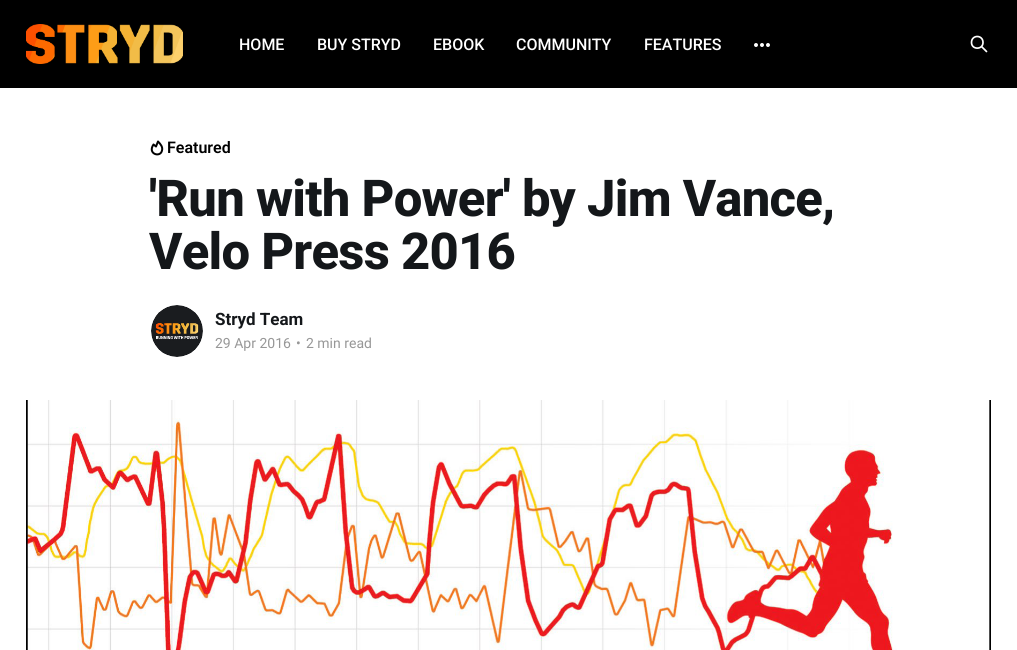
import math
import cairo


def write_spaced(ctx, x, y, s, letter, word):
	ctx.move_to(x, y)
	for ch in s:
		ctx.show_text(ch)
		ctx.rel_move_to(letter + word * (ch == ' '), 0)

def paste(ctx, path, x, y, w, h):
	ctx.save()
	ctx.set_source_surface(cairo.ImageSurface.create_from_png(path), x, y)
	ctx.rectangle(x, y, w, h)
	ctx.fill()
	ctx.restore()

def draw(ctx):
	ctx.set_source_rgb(1, 1, 1)
	ctx.paint()
	ctx.set_source_rgb(0, 0, 0)
	ctx.rectangle(0, 0, 1017, 88)
	ctx.fill()
	paste(ctx, 'media/1.png', 26, 24, 157, 40)
	ctx.select_font_face('Roboto Medium')
	ctx.set_font_size(16)
	ctx.set_source_rgb(1, 1, 1)
	for x, y, s in [
		(239, 50, 'HOME'),
		(317, 50, 'BUY STRYD'),
		(433, 50, 'EBOOK'),
		(516, 50, 'COMMUNITY'),
		(644, 50, 'FEATURES'),
	]:
		ctx.move_to(x, y)
		ctx.show_text(s)
	paste(ctx, 'media/2.png', 754, 43, 16, 4)
	ctx.new_path()
	ctx.move_to(986.5, 51.5)
	ctx.line_to(981.5, 46.5)
	ctx.move_to(983, 42.5)
	ctx.curve_to(983, 50, 971.5, 50, 971.5, 42.5)
	ctx.curve_to(971.5, 34.5, 983, 34.5, 983, 42.5)
	ctx.close_path()
	ctx.set_line_width(1.7)
	ctx.set_line_cap(cairo.LINE_CAP_ROUND)
	ctx.set_line_join(cairo.LINE_JOIN_ROUND)
	ctx.stroke()
	ctx.new_path()
	ctx.move_to(153.5, 144.5)
	ctx.curve_to(147, 154, 160.5, 158, 162, 150.5)
	ctx.curve_to(163, 147, 160.5, 144, 158, 141.5)
	ctx.line_to(156, 146.5)
	ctx.close_path()
	ctx.set_source_rgb(0, 0, 0)
	ctx.set_line_width(2)
	ctx.stroke()
	ctx.select_font_face('Roboto SemiBold')
	ctx.move_to(167, 153)
	ctx.show_text('Featured')
	ctx.select_font_face('Roboto ExtraBold')
	ctx.set_font_size(50.8)
	ctx.set_source_rgb(0.082, 0.09, 0.102)
	write_spaced(ctx, 149, 216, '\'Run with Power\' by Jim Vance,', -0.75, 0)
	write_spaced(ctx, 149, 269, 'Velo Press 2016', -0.75, 0)
	paste(ctx, 'media/3.png', 151, 305, 52, 52)
	ctx.select_font_face('Roboto', cairo.FONT_SLANT_NORMAL, cairo.FONT_WEIGHT_BOLD)
	ctx.set_font_size(17)
	ctx.move_to(215, 325)
	ctx.show_text('Stryd Team')
	ctx.select_font_face('Roboto')
	ctx.set_font_size(14)
	ctx.set_source_rgb(0.592, 0.592, 0.592)
	for x, y, s in [
		(215, 348, '29 Apr 2016'),
		(296, 348, '•'),
		(306, 348, '2 min read'),
	]:
		ctx.move_to(x, y)
		ctx.show_text(s)
	paste(ctx, 'media/4.png', 26, 400, 965, 250)


surface = cairo.ImageSurface(cairo.FORMAT_RGB24, 1017, 650)
ctx = cairo.Context(surface)
options = cairo.FontOptions()
options.set_hint_metrics(cairo.HINT_METRICS_OFF)
options.set_hint_style(cairo.HINT_STYLE_NONE)
ctx.set_font_options(options)
ctx.set_miter_limit(4)
draw(ctx)
surface.write_to_png('image.png')
